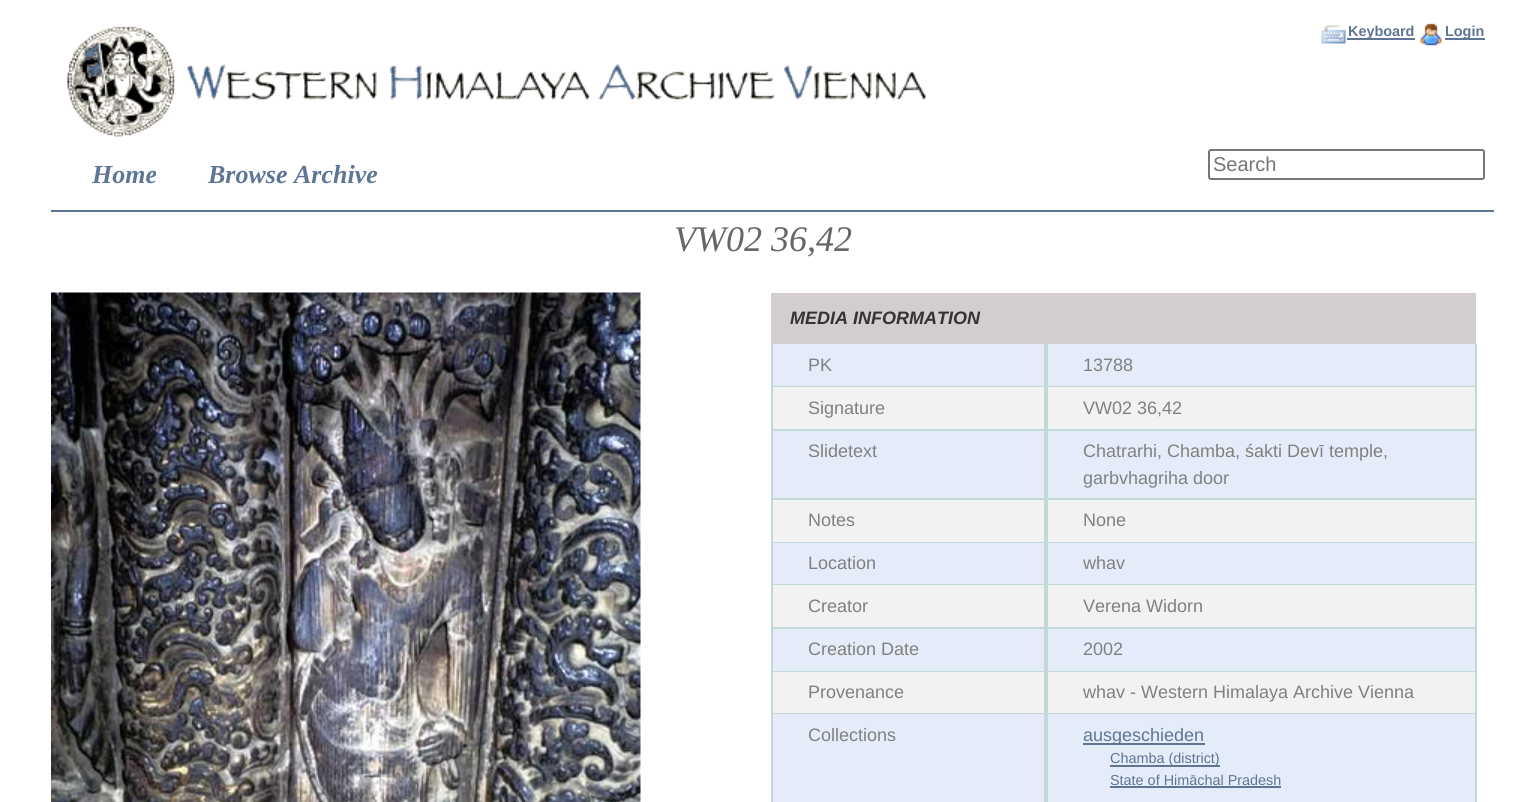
import math
import cairo


def round_path(ctx, x, y, w, h, r):
	ctx.new_sub_path()
	for i, (u, v) in enumerate([(x + w - r, y + h - r), (x + r, y + h - r), (x + r, y + r), (x + w - r, y + r)]):
		ctx.arc(u, v, r, i * math.pi / 2, (i + 1) * math.pi / 2)
	ctx.close_path()

def paste(ctx, path, x, y, w, h):
	ctx.save()
	ctx.set_source_surface(cairo.ImageSurface.create_from_png(path), x, y)
	ctx.rectangle(x, y, w, h)
	ctx.fill()
	ctx.restore()

def draw(ctx):
	ctx.set_source_rgb(1, 1, 1)
	ctx.paint()
	ctx.set_source_rgb(0.369, 0.459, 0.588)
	ctx.rectangle(51, 210, 1443, 2)
	ctx.fill()
	paste(ctx, 'media/1.png', 67, 26, 859, 111)
	paste(ctx, 'media/2.png', 1321, 25, 25, 19)
	ctx.rectangle(1347, 38, 68, 2)
	ctx.fill()
	ctx.select_font_face('Liberation Sans', cairo.FONT_SLANT_NORMAL, cairo.FONT_WEIGHT_BOLD)
	ctx.set_font_size(14.4)
	ctx.move_to(1348, 36)
	ctx.show_text('Keyboard')
	paste(ctx, 'media/3.png', 1420, 23, 22, 23)
	ctx.rectangle(1445, 38, 40, 2)
	ctx.fill()
	ctx.move_to(1445, 36)
	ctx.show_text('Login')
	ctx.select_font_face('Liberation Serif', cairo.FONT_SLANT_ITALIC, cairo.FONT_WEIGHT_BOLD)
	ctx.set_font_size(26)
	ctx.move_to(92, 183)
	ctx.show_text('Home')
	ctx.move_to(208, 183)
	ctx.show_text('Browse Archive')
	round_path(ctx, 1209, 150, 275, 29, 2)
	ctx.set_source_rgb(0.463, 0.463, 0.463)
	ctx.stroke()
	ctx.select_font_face('Liberation Sans')
	ctx.set_font_size(20)
	ctx.set_source_rgb(0.459, 0.459, 0.459)
	ctx.move_to(1213, 171)
	ctx.show_text('Search')
	ctx.select_font_face('Liberation Serif', cairo.FONT_SLANT_ITALIC)
	ctx.set_font_size(36)
	ctx.set_source_rgb(0.4, 0.4, 0.4)
	ctx.move_to(674, 251)
	ctx.show_text('VW02 36,42')
	paste(ctx, 'media/4.png', 51, 292, 590, 510)
	ctx.set_source_rgb(0.827, 0.804, 0.804)
	ctx.rectangle(771, 293, 705, 51)
	ctx.fill()
	ctx.select_font_face('Liberation Sans', cairo.FONT_SLANT_ITALIC, cairo.FONT_WEIGHT_BOLD)
	ctx.set_font_size(18)
	ctx.set_source_rgb(0.2, 0.2, 0.2)
	ctx.move_to(790, 324)
	ctx.show_text('MEDIA INFORMATION')
	ctx.set_source_rgb(0.898, 0.925, 0.976)
	ctx.rectangle(773, 344, 271, 42)
	ctx.fill()
	ctx.set_source_rgb(0.757, 0.855, 0.843)
	ctx.rectangle(1044, 344, 2, 458)
	ctx.rectangle(771, 386, 275, 1)
	ctx.rectangle(771, 344, 2, 43)
	ctx.fill()
	ctx.select_font_face('Liberation Sans')
	ctx.set_source_rgb(0.502, 0.502, 0.502)
	ctx.move_to(808, 371)
	ctx.show_text('PK')
	ctx.set_source_rgb(0.898, 0.925, 0.976)
	ctx.rectangle(1048, 344, 427, 42)
	ctx.fill()
	ctx.set_source_rgb(0.757, 0.855, 0.843)
	ctx.rectangle(1475, 344, 2, 458)
	ctx.rectangle(1046, 386, 430, 1)
	ctx.rectangle(1046, 344, 2, 43)
	ctx.fill()
	ctx.set_source_rgb(0.502, 0.502, 0.502)
	ctx.move_to(1083, 371)
	ctx.show_text('13788')
	ctx.set_source_rgb(0.949, 0.949, 0.949)
	ctx.rectangle(773, 387, 271, 42)
	ctx.fill()
	ctx.set_source_rgb(0.757, 0.855, 0.843)
	ctx.rectangle(771, 429, 705, 2)
	ctx.rectangle(771, 387, 2, 44)
	ctx.fill()
	ctx.set_source_rgb(0.502, 0.502, 0.502)
	ctx.move_to(808, 414)
	ctx.show_text('Signature')
	ctx.set_source_rgb(0.949, 0.949, 0.949)
	ctx.rectangle(1048, 387, 427, 42)
	ctx.fill()
	ctx.set_source_rgb(0.757, 0.855, 0.843)
	ctx.rectangle(1046, 387, 2, 44)
	ctx.fill()
	ctx.set_source_rgb(0.502, 0.502, 0.502)
	ctx.move_to(1083, 414)
	ctx.show_text('VW02 36,42')
	ctx.set_source_rgb(0.898, 0.925, 0.976)
	ctx.rectangle(773, 431, 271, 67)
	ctx.fill()
	ctx.set_source_rgb(0.757, 0.855, 0.843)
	ctx.rectangle(771, 498, 705, 2)
	ctx.rectangle(771, 431, 2, 69)
	ctx.fill()
	ctx.set_source_rgb(0.502, 0.502, 0.502)
	ctx.move_to(808, 457)
	ctx.show_text('Slidetext')
	ctx.set_source_rgb(0.898, 0.925, 0.976)
	ctx.rectangle(1048, 431, 427, 67)
	ctx.fill()
	ctx.set_source_rgb(0.757, 0.855, 0.843)
	ctx.rectangle(1046, 431, 2, 69)
	ctx.fill()
	ctx.set_source_rgb(0.502, 0.502, 0.502)
	ctx.move_to(1083, 457)
	ctx.show_text('Chatrarhi, Chamba, śakti Devī temple,')
	ctx.move_to(1083, 484)
	ctx.show_text('garbvhagriha door')
	ctx.set_source_rgb(0.949, 0.949, 0.949)
	ctx.rectangle(773, 500, 271, 42)
	ctx.fill()
	ctx.set_source_rgb(0.757, 0.855, 0.843)
	ctx.rectangle(771, 542, 705, 1)
	ctx.rectangle(771, 500, 2, 43)
	ctx.fill()
	ctx.set_source_rgb(0.502, 0.502, 0.502)
	ctx.move_to(808, 526)
	ctx.show_text('Notes')
	ctx.set_source_rgb(0.949, 0.949, 0.949)
	ctx.rectangle(1048, 500, 427, 42)
	ctx.fill()
	ctx.set_source_rgb(0.757, 0.855, 0.843)
	ctx.rectangle(1046, 500, 2, 43)
	ctx.fill()
	ctx.set_source_rgb(0.502, 0.502, 0.502)
	ctx.move_to(1083, 526)
	ctx.show_text('None')
	ctx.set_source_rgb(0.898, 0.925, 0.976)
	ctx.rectangle(773, 543, 271, 41)
	ctx.fill()
	ctx.set_source_rgb(0.757, 0.855, 0.843)
	ctx.rectangle(771, 584, 705, 1)
	ctx.rectangle(771, 543, 2, 42)
	ctx.fill()
	ctx.set_source_rgb(0.502, 0.502, 0.502)
	ctx.move_to(808, 569)
	ctx.show_text('Location')
	ctx.set_source_rgb(0.898, 0.925, 0.976)
	ctx.rectangle(1048, 543, 427, 41)
	ctx.fill()
	ctx.set_source_rgb(0.757, 0.855, 0.843)
	ctx.rectangle(1046, 543, 2, 42)
	ctx.fill()
	ctx.set_source_rgb(0.502, 0.502, 0.502)
	ctx.move_to(1083, 569)
	ctx.show_text('whav')
	ctx.set_source_rgb(0.949, 0.949, 0.949)
	ctx.rectangle(773, 585, 271, 42)
	ctx.fill()
	ctx.set_source_rgb(0.757, 0.855, 0.843)
	ctx.rectangle(771, 627, 705, 2)
	ctx.rectangle(771, 585, 2, 44)
	ctx.fill()
	ctx.set_source_rgb(0.502, 0.502, 0.502)
	ctx.move_to(808, 612)
	ctx.show_text('Creator')
	ctx.set_source_rgb(0.949, 0.949, 0.949)
	ctx.rectangle(1048, 585, 427, 42)
	ctx.fill()
	ctx.set_source_rgb(0.757, 0.855, 0.843)
	ctx.rectangle(1046, 585, 2, 44)
	ctx.fill()
	ctx.set_source_rgb(0.502, 0.502, 0.502)
	ctx.move_to(1083, 612)
	ctx.show_text('Verena Widorn')
	ctx.set_source_rgb(0.898, 0.925, 0.976)
	ctx.rectangle(773, 629, 271, 42)
	ctx.fill()
	ctx.set_source_rgb(0.757, 0.855, 0.843)
	ctx.rectangle(771, 671, 705, 1)
	ctx.rectangle(771, 629, 2, 43)
	ctx.fill()
	ctx.set_source_rgb(0.502, 0.502, 0.502)
	ctx.move_to(808, 655)
	ctx.show_text('Creation Date')
	ctx.set_source_rgb(0.898, 0.925, 0.976)
	ctx.rectangle(1048, 629, 427, 42)
	ctx.fill()
	ctx.set_source_rgb(0.757, 0.855, 0.843)
	ctx.rectangle(1046, 629, 2, 43)
	ctx.fill()
	ctx.set_source_rgb(0.502, 0.502, 0.502)
	ctx.move_to(1083, 655)
	ctx.show_text('2002')
	ctx.set_source_rgb(0.949, 0.949, 0.949)
	ctx.rectangle(773, 672, 271, 41)
	ctx.fill()
	ctx.set_source_rgb(0.757, 0.855, 0.843)
	ctx.rectangle(771, 713, 705, 1)
	ctx.rectangle(771, 672, 2, 130)
	ctx.fill()
	ctx.set_source_rgb(0.502, 0.502, 0.502)
	ctx.move_to(808, 698)
	ctx.show_text('Provenance')
	ctx.set_source_rgb(0.949, 0.949, 0.949)
	ctx.rectangle(1048, 672, 427, 41)
	ctx.fill()
	ctx.set_source_rgb(0.757, 0.855, 0.843)
	ctx.rectangle(1046, 672, 2, 130)
	ctx.fill()
	ctx.set_source_rgb(0.502, 0.502, 0.502)
	ctx.move_to(1083, 698)
	ctx.show_text('whav - Western Himalaya Archive Vienna')
	ctx.set_source_rgb(0.898, 0.925, 0.976)
	ctx.rectangle(773, 714, 271, 88)
	ctx.fill()
	ctx.set_source_rgb(0.502, 0.502, 0.502)
	ctx.move_to(808, 741)
	ctx.show_text('Collections')
	ctx.set_source_rgb(0.898, 0.925, 0.976)
	ctx.rectangle(1048, 714, 427, 88)
	ctx.fill()
	ctx.set_source_rgb(0.369, 0.459, 0.588)
	ctx.rectangle(1083, 743, 122, 2)
	ctx.fill()
	ctx.move_to(1083, 741)
	ctx.show_text('ausgeschieden')
	ctx.rectangle(1110, 765, 110, 2)
	ctx.fill()
	ctx.set_font_size(14.4)
	ctx.move_to(1110, 763)
	ctx.show_text('Chamba (district)')
	ctx.move_to(1110, 785)
	ctx.show_text('State of Himāchal Pradesh')
	ctx.rectangle(1110, 786, 171, 2)
	ctx.fill()


surface = cairo.ImageSurface(cairo.FORMAT_RGB24, 1525, 802)
ctx = cairo.Context(surface)
options = cairo.FontOptions()
options.set_hint_metrics(cairo.HINT_METRICS_OFF)
options.set_hint_style(cairo.HINT_STYLE_NONE)
ctx.set_font_options(options)
ctx.set_miter_limit(4)
draw(ctx)
surface.write_to_png('image.png')
